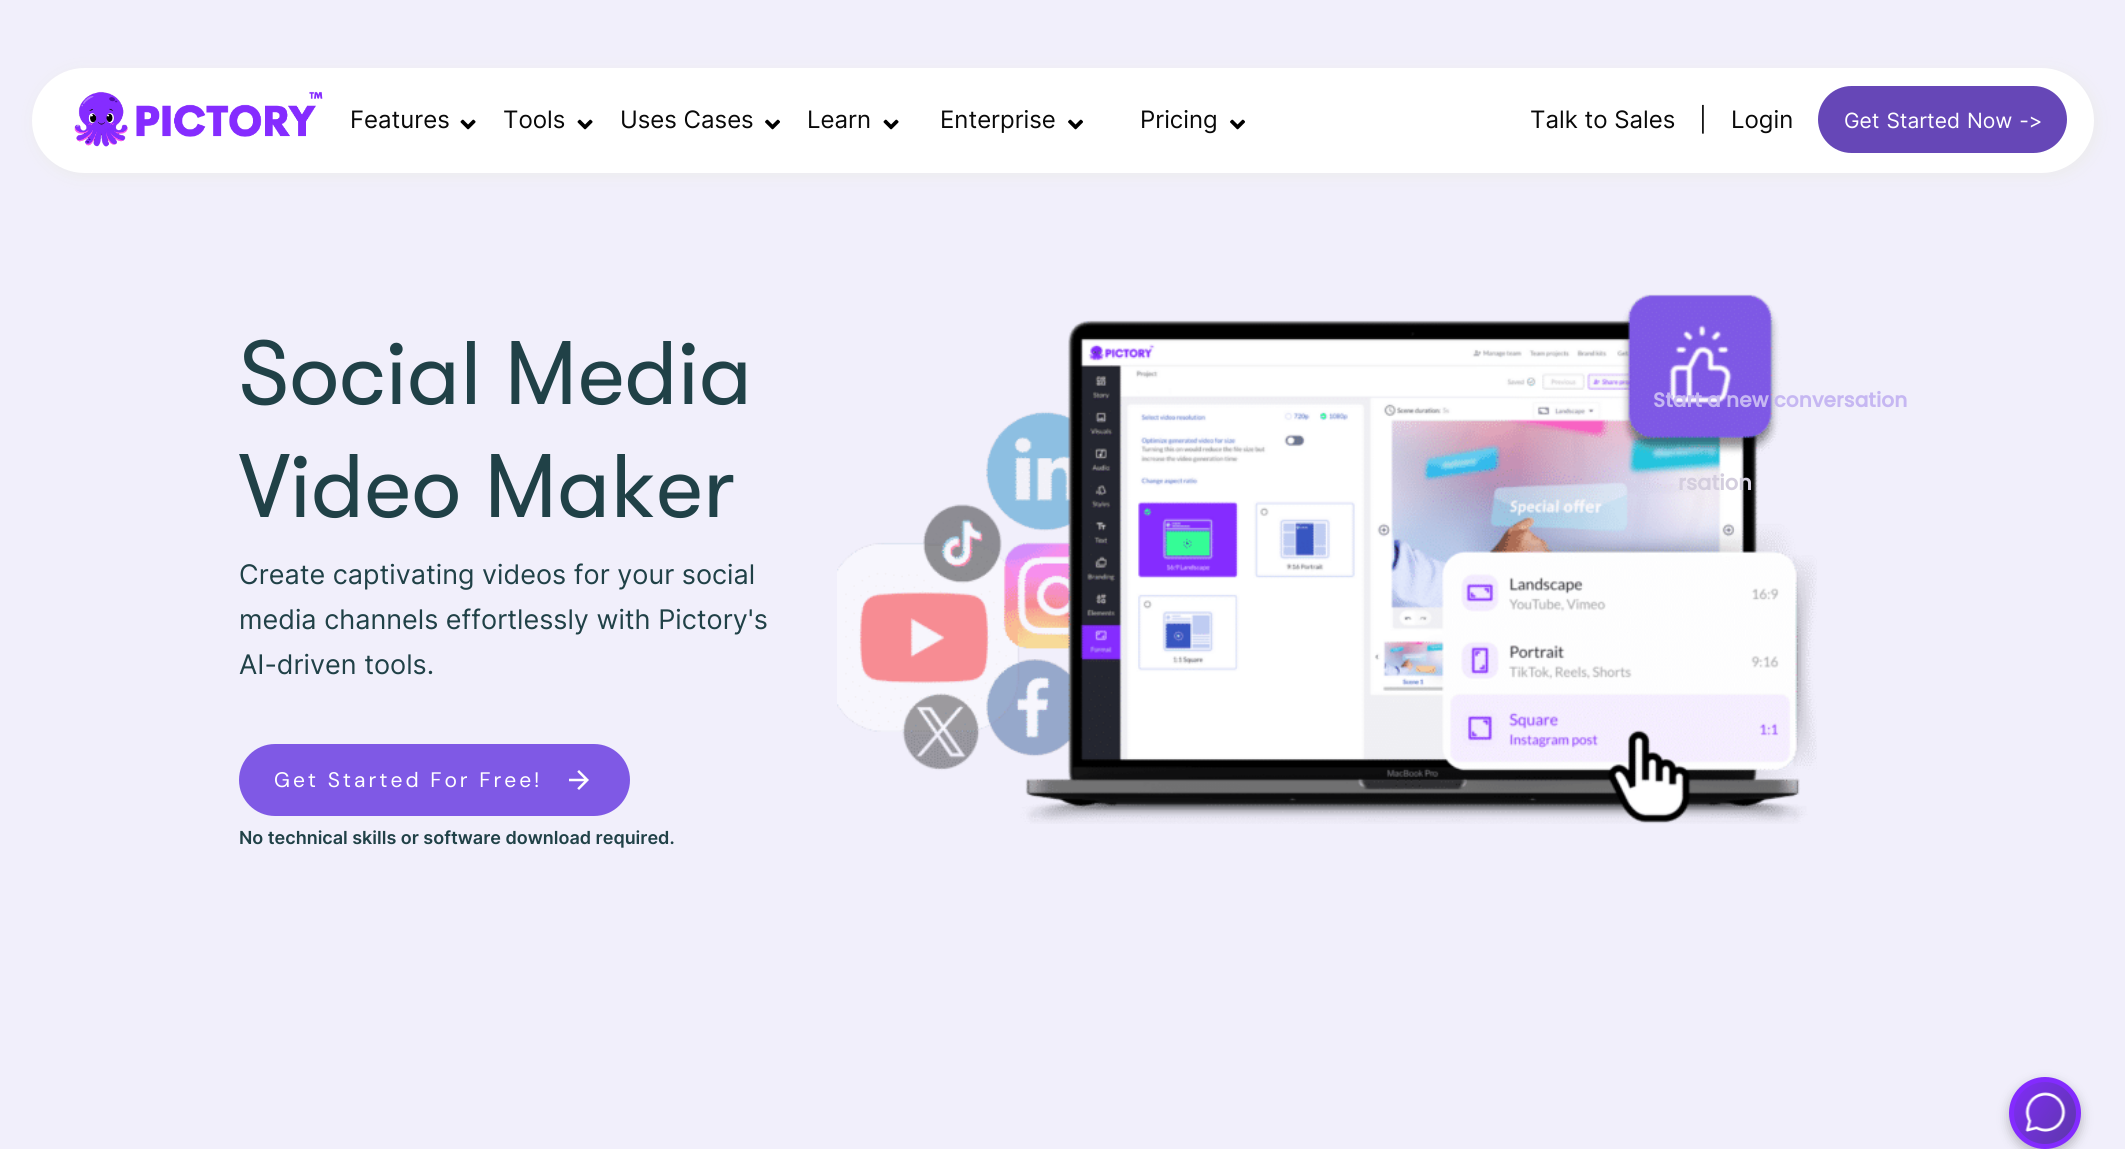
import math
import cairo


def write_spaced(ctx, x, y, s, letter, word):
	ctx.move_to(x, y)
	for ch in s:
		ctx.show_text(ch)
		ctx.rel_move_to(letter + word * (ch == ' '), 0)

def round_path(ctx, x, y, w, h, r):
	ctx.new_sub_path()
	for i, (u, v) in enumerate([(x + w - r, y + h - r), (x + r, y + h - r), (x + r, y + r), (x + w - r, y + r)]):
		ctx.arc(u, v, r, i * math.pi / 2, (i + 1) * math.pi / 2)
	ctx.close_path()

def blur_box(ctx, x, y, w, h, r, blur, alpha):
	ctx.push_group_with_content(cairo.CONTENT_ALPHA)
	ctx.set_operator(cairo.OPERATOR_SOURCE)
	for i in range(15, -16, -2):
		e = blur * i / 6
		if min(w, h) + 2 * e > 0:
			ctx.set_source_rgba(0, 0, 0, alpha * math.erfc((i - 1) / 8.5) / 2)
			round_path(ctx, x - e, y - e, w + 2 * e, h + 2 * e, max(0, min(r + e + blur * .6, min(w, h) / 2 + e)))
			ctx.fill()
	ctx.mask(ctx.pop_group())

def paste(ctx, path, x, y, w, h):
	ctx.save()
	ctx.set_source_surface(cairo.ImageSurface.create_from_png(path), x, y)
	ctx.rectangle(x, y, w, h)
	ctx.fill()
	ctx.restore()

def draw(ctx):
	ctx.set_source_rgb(0.945, 0.937, 0.984)
	ctx.paint()
	ctx.set_source_rgb(0.925, 0.925, 0.925)
	blur_box(ctx, 35, 71, 2062, 105, 52.5, 7.5, 1)
	ctx.set_source_rgb(1, 1, 1)
	round_path(ctx, 32, 68, 2062, 105, 52.5)
	ctx.fill()
	paste(ctx, 'media/1.png', 74, 91, 249, 56)
	ctx.select_font_face('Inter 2')
	ctx.set_font_size(24)
	ctx.set_source_rgb(0.039, 0.039, 0.039)
	ctx.move_to(350, 128)
	ctx.show_text('Features')
	paste(ctx, 'media/2.png', 460, 119, 16, 11)
	ctx.move_to(503, 128)
	ctx.show_text('Tools')
	paste(ctx, 'media/2.png', 577, 119, 16, 11)
	ctx.move_to(620, 128)
	ctx.show_text('Uses Cases')
	paste(ctx, 'media/3.png', 765, 119, 15, 11)
	ctx.move_to(807, 128)
	ctx.show_text('Learn')
	paste(ctx, 'media/2.png', 883, 119, 16, 11)
	ctx.move_to(940, 128)
	ctx.show_text('Enterprise')
	paste(ctx, 'media/3.png', 1068, 119, 15, 11)
	ctx.move_to(1140, 128)
	ctx.show_text('Pricing')
	paste(ctx, 'media/3.png', 1230, 119, 15, 11)
	for x, y, s in [
		(1530, 128, 'Talk to Sales'),
		(1699, 128, '|'),
		(1731, 128, 'Login'),
	]:
		ctx.move_to(x, y)
		ctx.show_text(s)
	ctx.set_source_rgb(0.4, 0.278, 0.718)
	round_path(ctx, 1818, 86, 249, 67, 33.5)
	ctx.fill()
	ctx.set_font_size(21)
	ctx.set_source_rgb(1, 1, 1)
	write_spaced(ctx, 1844, 128, 'Get Started Now ->', 0, 1)
	ctx.select_font_face('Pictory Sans')
	ctx.set_font_size(90)
	ctx.set_source_rgb(0.125, 0.255, 0.278)
	ctx.move_to(239, 404)
	ctx.show_text('Social Media')
	ctx.move_to(239, 517)
	ctx.show_text('Video Maker')
	ctx.select_font_face('Inter')
	ctx.set_font_size(27)
	for x, y, s in [
		(239, 584, 'Create captivating videos for your social'),
		(239, 629, 'media channels effortlessly with Pictory\'s'),
		(239, 674, 'AI-driven tools.'),
	]:
		ctx.move_to(x, y)
		ctx.show_text(s)
	ctx.set_source_rgb(0.498, 0.349, 0.898)
	round_path(ctx, 239, 744, 391, 72, 36)
	ctx.fill()
	ctx.select_font_face('DM Sans')
	ctx.set_font_size(21)
	ctx.set_source_rgb(1, 1, 1)
	write_spaced(ctx, 274, 787, 'Get Started For Free!', 3, 0)
	paste(ctx, 'media/4.png', 569, 770, 20, 20)
	ctx.select_font_face('Inter SemiBold')
	ctx.set_font_size(18)
	ctx.set_source_rgb(0.125, 0.255, 0.278)
	ctx.move_to(239, 844)
	ctx.show_text('No technical skills or software download required.')
	paste(ctx, 'media/5.png', 837, 294, 980, 530)
	ctx.select_font_face('Poppins', cairo.FONT_SLANT_NORMAL, cairo.FONT_WEIGHT_BOLD)
	ctx.set_font_size(20.25)
	ctx.set_source_rgb(0.776, 0.718, 0.949)
	ctx.move_to(1653, 407)
	ctx.show_text('Start a new conversation')
	ctx.set_font_size(21)
	ctx.set_source_rgb(0.831, 0.808, 0.871)
	ctx.move_to(1678, 490)
	ctx.show_text('rsation')
	ctx.set_source_rgb(0, 0, 0)
	blur_box(ctx, 2009, 1082, 72, 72, 36, 6, 0.24)
	gradient = cairo.LinearGradient(2003, 1084, 2086, 1142)
	gradient.add_color_stop_rgba(0, 0.514, 0.169, 0.996, 1)
	gradient.add_color_stop_rgba(1, 0.349, 0.224, 0.635, 1)
	ctx.set_source(gradient)
	ctx.arc(2045, 1113, 33.5, 0, 2 * math.pi)
	ctx.fill_preserve()
	ctx.set_source_rgb(0.514, 0.169, 0.996)
	ctx.set_line_width(5)
	ctx.stroke()
	paste(ctx, 'media/6.png', 2025, 1092, 41, 40)


surface = cairo.ImageSurface(cairo.FORMAT_RGB24, 2125, 1149)
ctx = cairo.Context(surface)
options = cairo.FontOptions()
options.set_hint_metrics(cairo.HINT_METRICS_OFF)
options.set_hint_style(cairo.HINT_STYLE_NONE)
ctx.set_font_options(options)
ctx.set_miter_limit(4)
draw(ctx)
surface.write_to_png('image.png')
